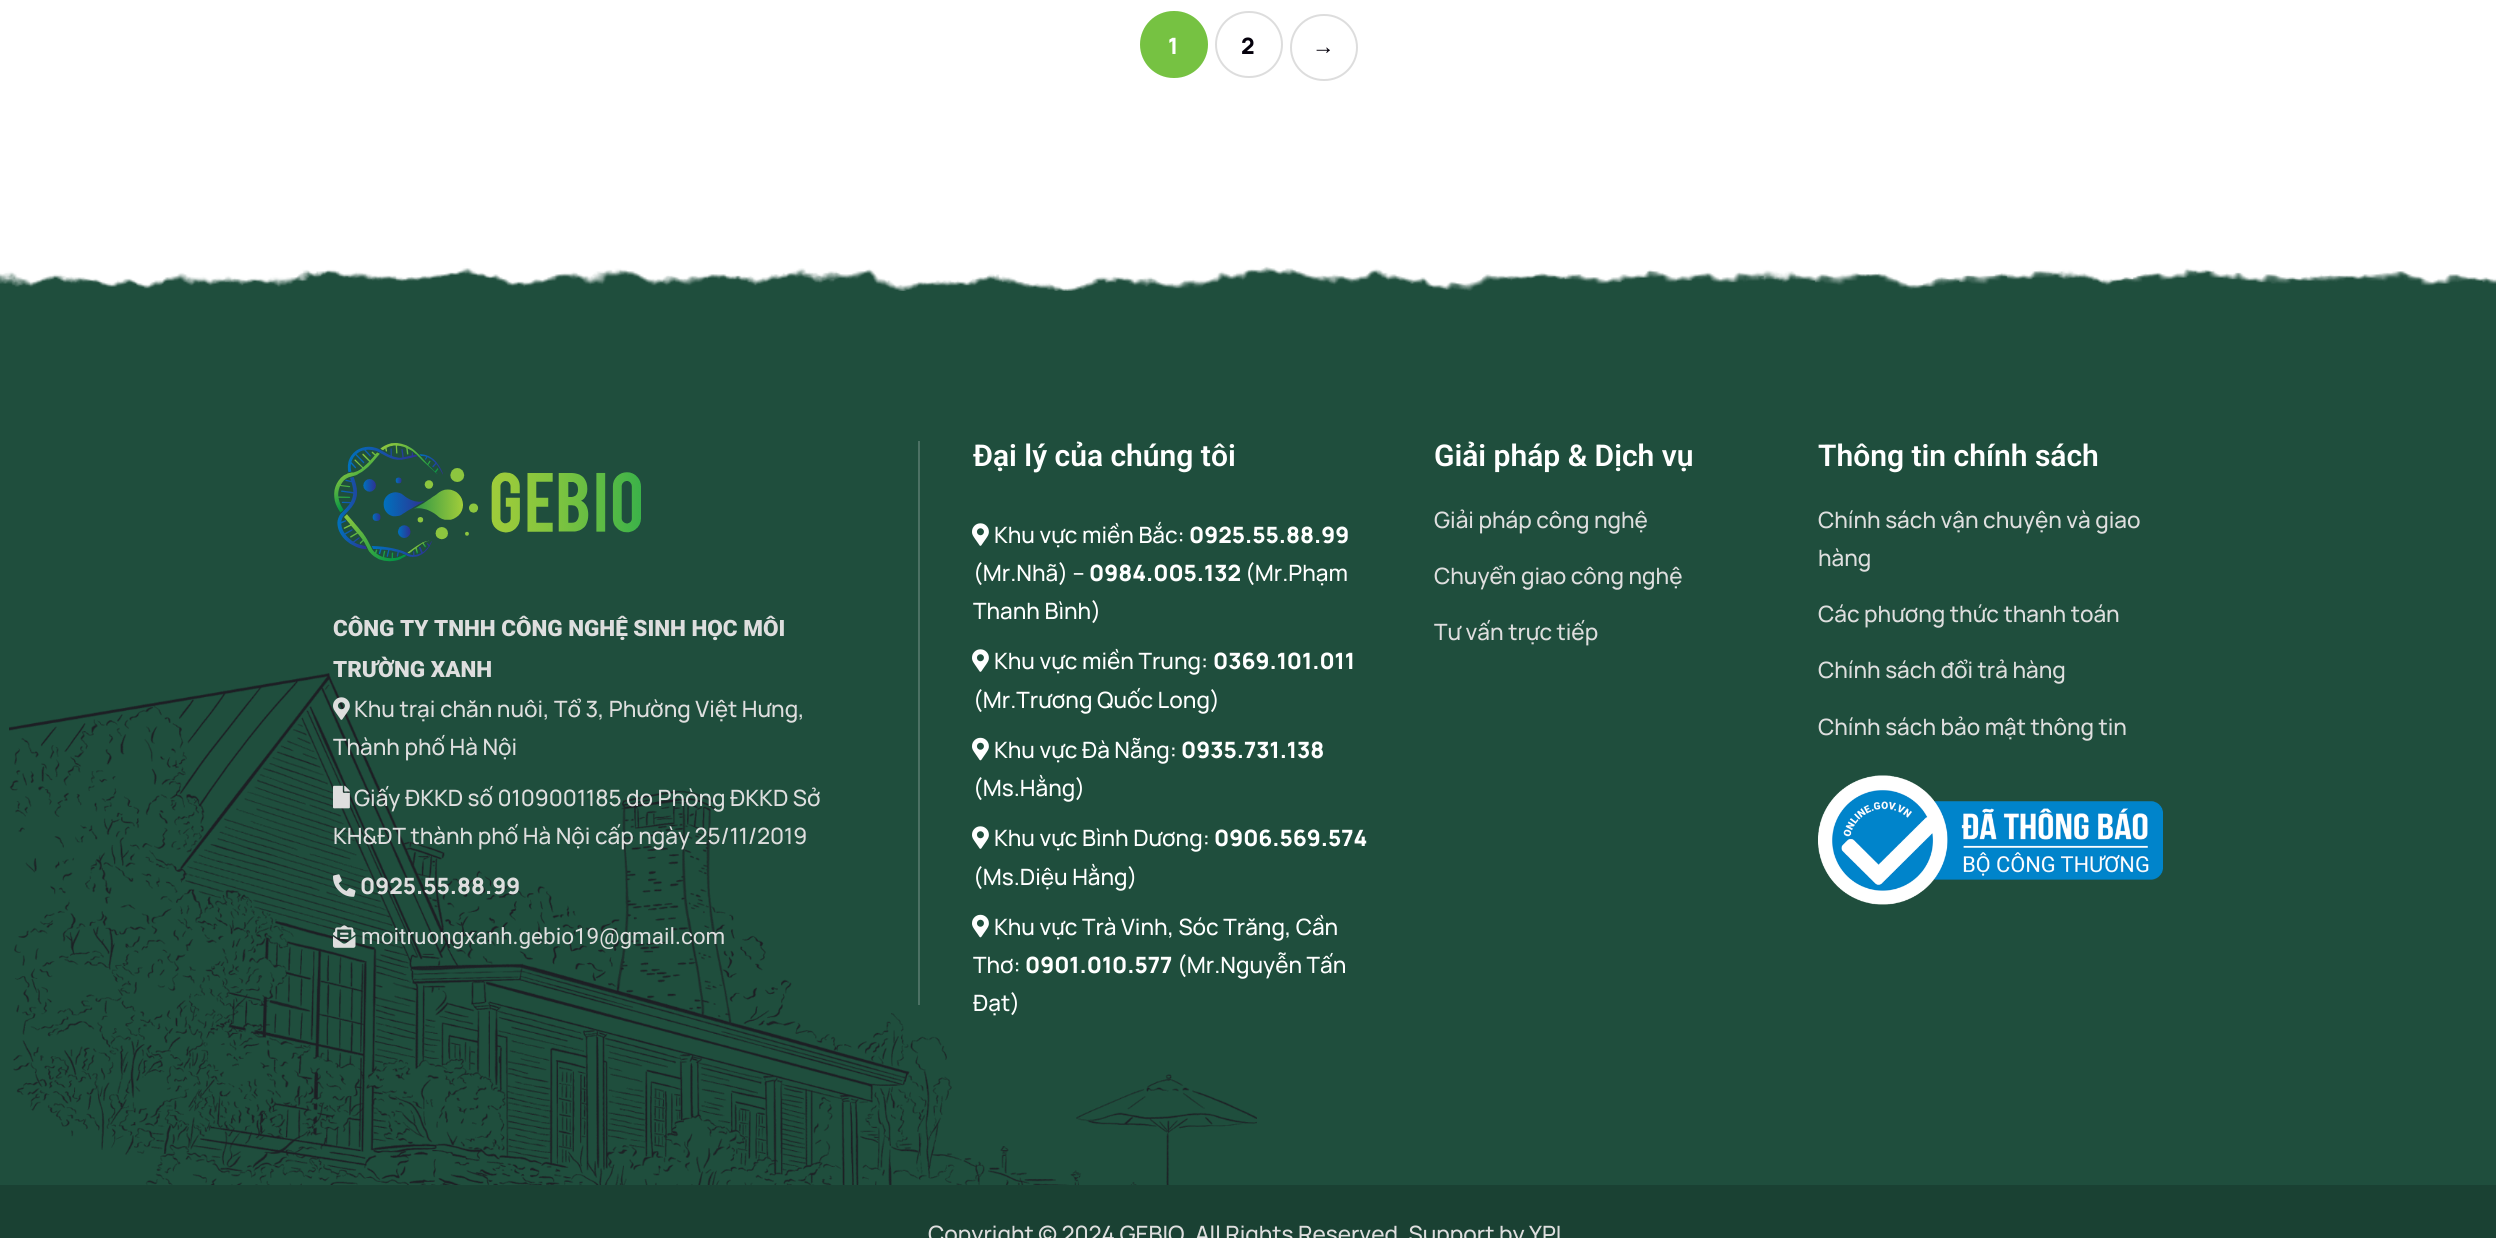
import math
import cairo


def round_path(ctx, x, y, w, h, r):
	ctx.new_sub_path()
	for i, (u, v) in enumerate([(x + w - r, y + h - r), (x + r, y + h - r), (x + r, y + r), (x + w - r, y + r)]):
		ctx.arc(u, v, r, i * math.pi / 2, (i + 1) * math.pi / 2)
	ctx.close_path()

def paste(ctx, path, x, y, w, h):
	ctx.save()
	ctx.set_source_surface(cairo.ImageSurface.create_from_png(path), x, y)
	ctx.rectangle(x, y, w, h)
	ctx.fill()
	ctx.restore()

def draw(ctx):
	ctx.set_source_rgb(1, 1, 1)
	ctx.paint()
	ctx.set_source_rgb(0.463, 0.761, 0.259)
	round_path(ctx, 1141, 12, 66, 65, 32.5)
	ctx.fill_preserve()
	ctx.stroke()
	ctx.select_font_face('Manrope ExtraBold')
	ctx.set_font_size(22.5)
	ctx.set_source_rgb(1, 1, 1)
	ctx.move_to(1168, 54)
	ctx.show_text('1')
	round_path(ctx, 1216, 12, 66, 65, 32.5)
	ctx.set_source_rgb(0.867, 0.867, 0.867)
	ctx.stroke()
	ctx.set_source_rgb(0.016, 0, 0.043)
	ctx.move_to(1241, 54)
	ctx.show_text('2')
	round_path(ctx, 1291, 15, 66, 65, 32.5)
	ctx.set_source_rgb(0.867, 0.867, 0.867)
	ctx.stroke()
	ctx.select_font_face('Liberation Sans', cairo.FONT_SLANT_NORMAL, cairo.FONT_WEIGHT_BOLD)
	ctx.set_source_rgb(0.016, 0, 0.043)
	ctx.move_to(1312, 54)
	ctx.show_text('→')
	ctx.set_source_rgb(0.122, 0.306, 0.239)
	ctx.rectangle(0, 266, 2496, 919)
	ctx.fill()
	paste(ctx, 'media/1.png', 0, 261, 2496, 30)
	paste(ctx, 'media/12.png', 9, 673, 1248, 512)
	ctx.set_source_rgb(0.298, 0.443, 0.392)
	ctx.rectangle(918, 441, 2, 564)
	ctx.fill()
	paste(ctx, 'media/2.png', 334, 443, 307, 119)
	ctx.select_font_face('Roboto Black')
	ctx.set_source_rgb(0.871, 0.871, 0.871)
	ctx.move_to(333, 636)
	ctx.show_text('CÔNG TY TNHH CÔNG NGHỆ SINH HỌC MÔI')
	ctx.move_to(333, 677)
	ctx.show_text('TRƯỜNG XANH')
	paste(ctx, 'media/3.png', 333, 697, 17, 23)
	ctx.select_font_face('Manrope Medium')
	ctx.move_to(354, 717)
	ctx.show_text('Khu trại chăn nuôi, Tổ 3, Phường Việt Hưng,')
	ctx.move_to(333, 755)
	ctx.show_text('Thành phố Hà Nội')
	paste(ctx, 'media/4.png', 333, 785, 17, 24)
	ctx.move_to(354, 806)
	ctx.show_text('Giấy ĐKKD số 0109001185 do Phòng ĐKKD Sở')
	ctx.move_to(333, 844)
	ctx.show_text('KH&ĐT thành phố Hà Nội cấp ngày 25/11/2019')
	paste(ctx, 'media/5.png', 333, 874, 23, 23)
	ctx.select_font_face('Manrope ExtraBold')
	ctx.move_to(360, 894)
	ctx.show_text('0925.55.88.99')
	paste(ctx, 'media/6.png', 333, 925, 23, 23)
	ctx.select_font_face('Roboto')
	ctx.move_to(361, 944)
	ctx.show_text('moitruongxanh.gebio19@gmail.com')
	ctx.select_font_face('Roboto SemiBold')
	ctx.set_font_size(30)
	ctx.set_source_rgb(1, 1, 1)
	ctx.move_to(973, 466)
	ctx.show_text('Đại lý của chúng tôi')
	paste(ctx, 'media/7.png', 972, 523, 17, 23)
	ctx.select_font_face('Manrope Medium')
	ctx.set_font_size(22.5)
	ctx.move_to(994, 543)
	ctx.show_text('Khu vực miền Bắc:')
	ctx.select_font_face('Manrope ExtraBold')
	ctx.move_to(1189, 543)
	ctx.show_text('0925.55.88.99')
	ctx.select_font_face('Manrope Medium')
	ctx.move_to(973, 581)
	ctx.show_text('(Mr.Nhã) –')
	ctx.select_font_face('Manrope ExtraBold')
	ctx.move_to(1089, 581)
	ctx.show_text('0984.005.132')
	ctx.select_font_face('Manrope Medium')
	ctx.move_to(1245, 581)
	ctx.show_text('(Mr.Phạm')
	ctx.move_to(973, 619)
	ctx.show_text('Thanh Bình)')
	paste(ctx, 'media/7.png', 972, 649, 17, 23)
	ctx.move_to(994, 669)
	ctx.show_text('Khu vực miền Trung:')
	ctx.select_font_face('Manrope ExtraBold')
	ctx.move_to(1213, 669)
	ctx.show_text('0369.101.011')
	ctx.select_font_face('Manrope Medium')
	ctx.move_to(973, 708)
	ctx.show_text('(Mr.Trương Quốc Long)')
	paste(ctx, 'media/8.png', 972, 737, 17, 24)
	ctx.move_to(994, 758)
	ctx.show_text('Khu vực Đà Nẵng:')
	ctx.select_font_face('Manrope ExtraBold')
	ctx.move_to(1181, 758)
	ctx.show_text('0935.731.138')
	ctx.select_font_face('Manrope Medium')
	ctx.move_to(973, 796)
	ctx.show_text('(Ms.Hằng)')
	paste(ctx, 'media/9.png', 972, 826, 17, 23)
	ctx.move_to(994, 846)
	ctx.show_text('Khu vực Bình Dương:')
	ctx.select_font_face('Manrope ExtraBold')
	ctx.move_to(1214, 846)
	ctx.show_text('0906.569.574')
	ctx.select_font_face('Manrope Medium')
	ctx.move_to(973, 885)
	ctx.show_text('(Ms.Diệu Hằng)')
	paste(ctx, 'media/10.png', 972, 914, 17, 24)
	ctx.move_to(994, 935)
	ctx.show_text('Khu vực Trà Vinh, Sóc Trăng, Cần')
	ctx.move_to(973, 973)
	ctx.show_text('Thơ:')
	ctx.select_font_face('Manrope ExtraBold')
	ctx.move_to(1025, 973)
	ctx.show_text('0901.010.577')
	ctx.select_font_face('Manrope Medium')
	ctx.move_to(1177, 973)
	ctx.show_text('(Mr.Nguyễn Tấn')
	ctx.move_to(973, 1011)
	ctx.show_text('Đạt)')
	ctx.select_font_face('Roboto SemiBold')
	ctx.set_font_size(30)
	ctx.move_to(1434, 466)
	ctx.show_text('Giải pháp & Dịch vụ')
	ctx.select_font_face('Manrope Medium')
	ctx.set_font_size(22.5)
	ctx.set_source_rgb(0.871, 0.871, 0.871)
	for x, y, s in [
		(1434, 528, 'Giải pháp công nghệ'),
		(1434, 584, 'Chuyển giao công nghệ'),
		(1434, 640, 'Tư vấn trực tiếp'),
	]:
		ctx.move_to(x, y)
		ctx.show_text(s)
	ctx.select_font_face('Roboto SemiBold')
	ctx.set_font_size(30)
	ctx.set_source_rgb(1, 1, 1)
	ctx.move_to(1818, 466)
	ctx.show_text('Thông tin chính sách')
	ctx.select_font_face('Manrope Medium')
	ctx.set_font_size(22.5)
	ctx.set_source_rgb(0.871, 0.871, 0.871)
	for x, y, s in [
		(1818, 528, 'Chính sách vận chuyện và giao'),
		(1818, 566, 'hàng'),
		(1818, 622, 'Các phương thức thanh toán'),
		(1818, 678, 'Chính sách đổi trả hàng'),
		(1818, 735, 'Chính sách bảo mật thông tin'),
	]:
		ctx.move_to(x, y)
		ctx.show_text(s)
	paste(ctx, 'media/11.png', 1818, 775, 345, 130)
	ctx.set_source_rgb(0.102, 0.255, 0.2)
	ctx.rectangle(0, 1185, 2496, 53)
	ctx.fill()
	ctx.set_source_rgb(0.871, 0.871, 0.871)
	ctx.move_to(928, 1242)
	ctx.show_text('Copyright © 2024 GEBIO')
	ctx.move_to(1195, 1242)
	ctx.show_text('All Rights Reserved. Support by YPL')


surface = cairo.ImageSurface(cairo.FORMAT_RGB24, 2496, 1238)
ctx = cairo.Context(surface)
options = cairo.FontOptions()
options.set_hint_metrics(cairo.HINT_METRICS_OFF)
options.set_hint_style(cairo.HINT_STYLE_NONE)
ctx.set_font_options(options)
ctx.set_miter_limit(4)
draw(ctx)
surface.write_to_png('image.png')
